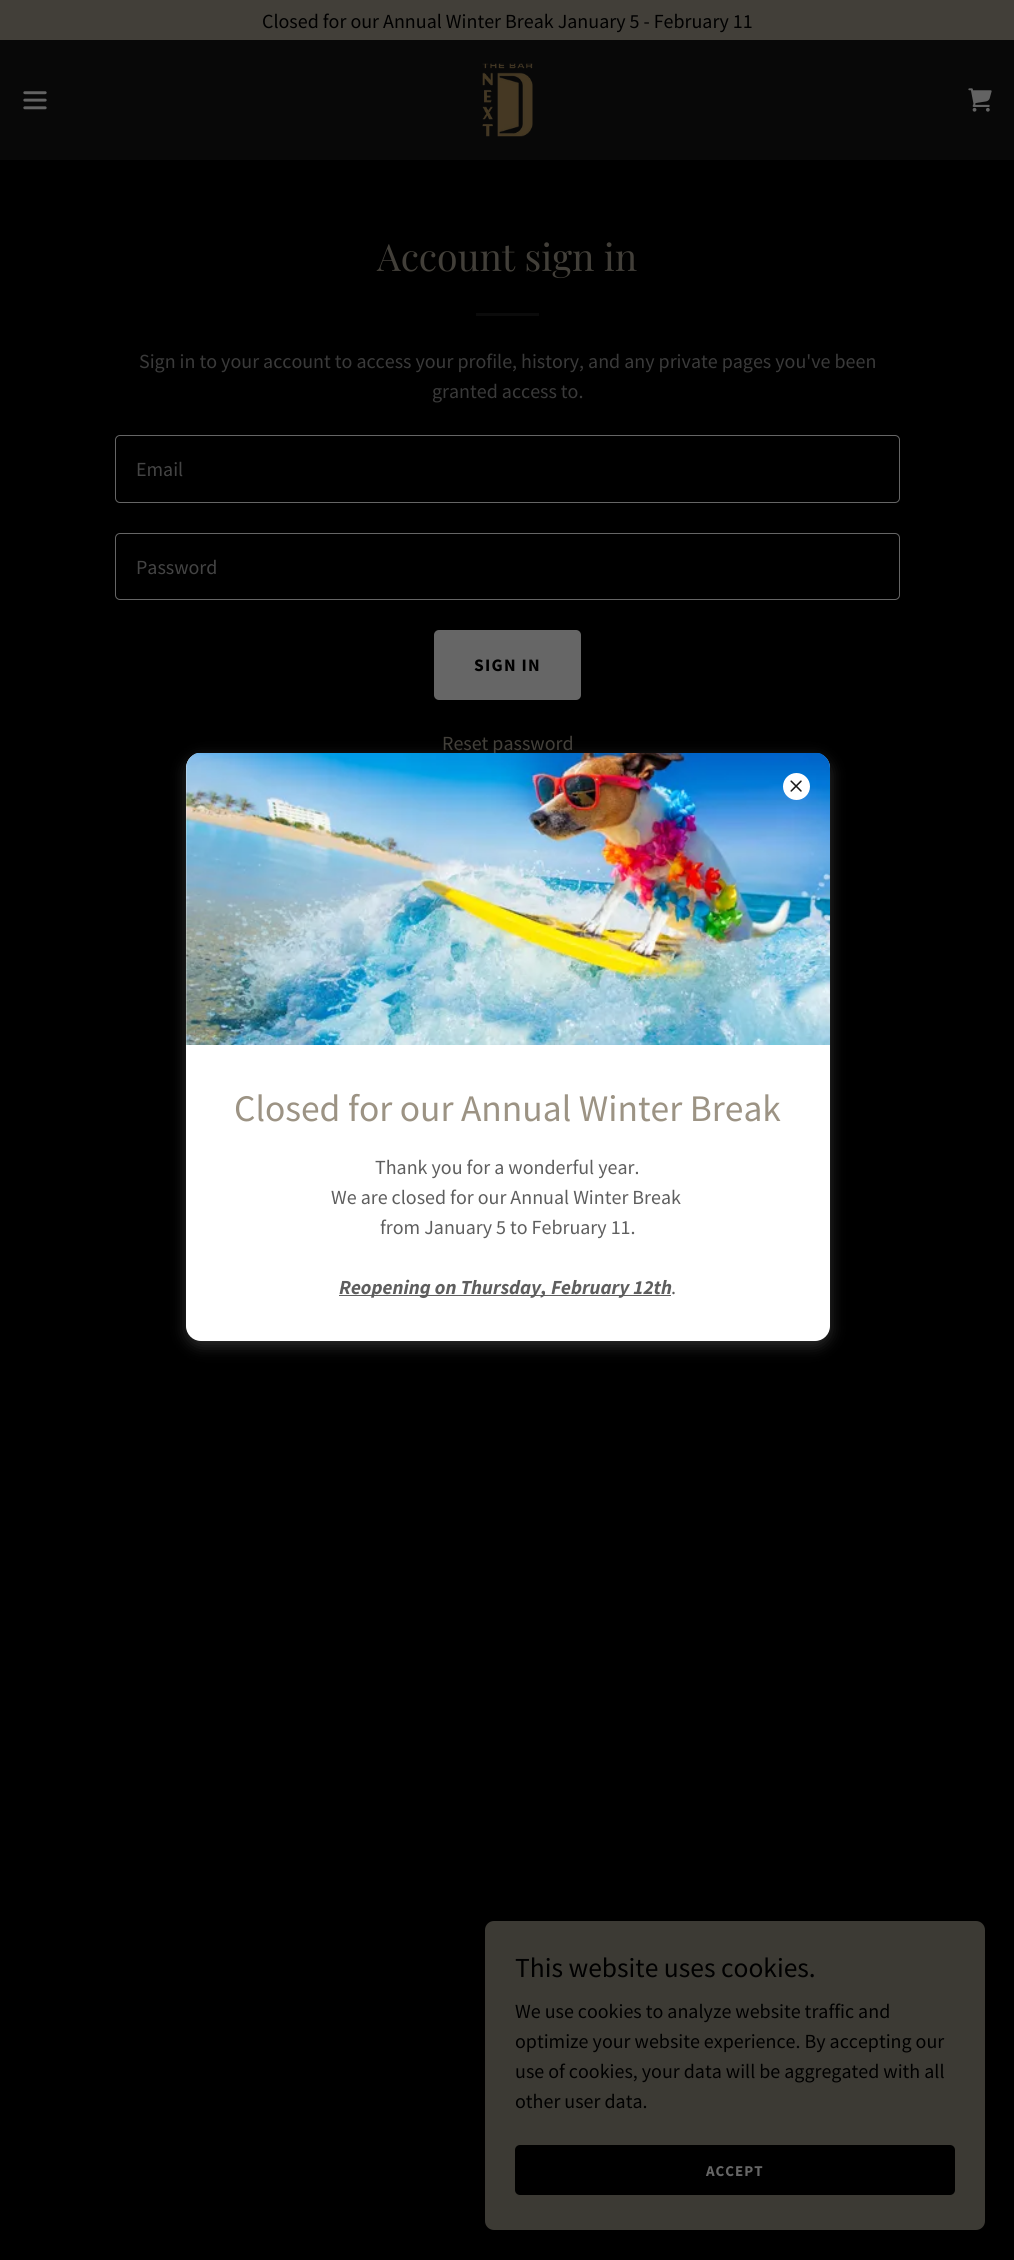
import math
import cairo


def write_spaced(ctx, x, y, s, letter, word):
	ctx.move_to(x, y)
	for ch in s:
		ctx.show_text(ch)
		ctx.rel_move_to(letter + word * (ch == ' '), 0)

def round_path(ctx, x, y, w, h, r):
	ctx.new_sub_path()
	for i, (u, v) in enumerate([(x + w - r, y + h - r), (x + r, y + h - r), (x + r, y + r), (x + w - r, y + r)]):
		ctx.arc(u, v, r, i * math.pi / 2, (i + 1) * math.pi / 2)
	ctx.close_path()

def blur_box(ctx, x, y, w, h, r, blur, alpha):
	ctx.push_group_with_content(cairo.CONTENT_ALPHA)
	ctx.set_operator(cairo.OPERATOR_SOURCE)
	for i in range(15, -16, -2):
		e = blur * i / 6
		if min(w, h) + 2 * e > 0:
			ctx.set_source_rgba(0, 0, 0, alpha * math.erfc((i - 1) / 8.5) / 2)
			round_path(ctx, x - e, y - e, w + 2 * e, h + 2 * e, max(0, min(r + e + blur * .6, min(w, h) / 2 + e)))
			ctx.fill()
	ctx.mask(ctx.pop_group())

def paste(ctx, path, x, y, w, h):
	ctx.save()
	ctx.set_source_surface(cairo.ImageSurface.create_from_png(path), x, y)
	ctx.rectangle(x, y, w, h)
	ctx.fill()
	ctx.restore()

def draw(ctx):
	ctx.set_source_rgb(0, 0, 0)
	ctx.paint()
	ctx.set_source_rgb(0.035, 0.035, 0.035)
	ctx.rectangle(0, 40, 1014, 120)
	ctx.fill()
	ctx.set_source_rgb(0.259, 0.247, 0.224)
	ctx.rectangle(0, 0, 1014, 40)
	ctx.fill()
	ctx.select_font_face('Source Sans Pro')
	ctx.set_font_size(20)
	ctx.set_source_rgb(0, 0, 0)
	ctx.move_to(262, 28)
	ctx.show_text('Closed for our Annual Winter Break January 5 - February 11')
	paste(ctx, 'media/1.png', 23, 91, 24, 19)
	paste(ctx, 'media/2.png', 482, 63, 51, 74)
	paste(ctx, 'media/3.png', 968, 88, 24, 24)
	ctx.select_font_face('Playfair Display')
	ctx.set_font_size(37.5)
	ctx.set_source_rgb(0.259, 0.247, 0.224)
	ctx.move_to(377, 271)
	ctx.show_text('Account sign in')
	ctx.set_source_rgb(0.043, 0.043, 0.043)
	ctx.rectangle(476, 313, 63, 3)
	ctx.fill()
	ctx.select_font_face('Source Sans Pro')
	ctx.set_font_size(20)
	ctx.set_source_rgb(0.227, 0.227, 0.227)
	ctx.move_to(139, 368)
	ctx.show_text('Sign in to your account to access your profile, history, and any private pages you\'ve been')
	ctx.move_to(432, 398)
	ctx.show_text('granted access to.')
	round_path(ctx, 115.5, 435.5, 784, 67, 4.5)
	ctx.set_source_rgb(0.4, 0.4, 0.4)
	ctx.set_line_width(1)
	ctx.stroke()
	ctx.set_source_rgb(0.267, 0.267, 0.267)
	ctx.move_to(136, 476)
	ctx.show_text('Email')
	round_path(ctx, 115.5, 533.5, 784, 66, 4.5)
	ctx.set_source_rgb(0.4, 0.4, 0.4)
	ctx.stroke()
	ctx.set_source_rgb(0.267, 0.267, 0.267)
	ctx.move_to(136, 574)
	ctx.show_text('Password')
	ctx.set_source_rgb(0.4, 0.4, 0.4)
	round_path(ctx, 434, 630, 147, 70, 5)
	ctx.fill()
	ctx.select_font_face('Source Sans Pro', cairo.FONT_SLANT_NORMAL, cairo.FONT_WEIGHT_BOLD)
	ctx.set_font_size(17.5)
	ctx.set_source_rgb(0, 0, 0)
	write_spaced(ctx, 474, 671, 'SIGN IN', 1.25, 0)
	ctx.select_font_face('Source Sans Pro')
	ctx.set_font_size(20)
	ctx.set_source_rgb(0.259, 0.247, 0.224)
	ctx.move_to(442, 750)
	ctx.show_text('Reset password')
	ctx.set_source_rgb(0.459, 0.459, 0.459)
	blur_box(ctx, 186, 758, 644, 588, 15, 7.5, 0.4)
	ctx.set_source_rgb(1, 1, 1)
	round_path(ctx, 186, 753, 644, 588, 15)
	ctx.fill()
	paste(ctx, 'media/5.png', 186, 753, 644, 292)
	ctx.arc(796.5, 786.5, 13.5, 0, 2 * math.pi)
	ctx.fill()
	paste(ctx, 'media/4.png', 790, 780, 12, 12)
	ctx.set_font_size(37.5)
	ctx.set_source_rgb(0.612, 0.576, 0.518)
	ctx.move_to(234, 1121)
	ctx.show_text('Closed for our Annual Winter Break')
	ctx.set_font_size(20)
	ctx.set_source_rgb(0.369, 0.369, 0.369)
	for x, y, s in [
		(375, 1174, 'Thank you for a wonderful year.'),
		(331, 1204, 'We are closed for our Annual Winter Break'),
		(380, 1234, 'from January 5 to February 11.'),
	]:
		ctx.move_to(x, y)
		ctx.show_text(s)
	ctx.rectangle(339, 1295, 332, 1)
	ctx.fill()
	ctx.select_font_face('Source Sans Pro', cairo.FONT_SLANT_ITALIC, cairo.FONT_WEIGHT_BOLD)
	ctx.move_to(339, 1294)
	ctx.show_text('Reopening on Thursday, February 12th')
	ctx.select_font_face('Source Sans Pro')
	ctx.move_to(671, 1294)
	ctx.show_text('.')
	ctx.set_source_rgb(0.235, 0.227, 0.204)
	round_path(ctx, 485, 1921, 500, 309, 9)
	ctx.fill()
	ctx.set_font_size(27.5)
	ctx.set_source_rgb(0, 0, 0)
	ctx.move_to(515, 1977)
	ctx.show_text('This website uses cookies.')
	ctx.set_font_size(20)
	for x, y, s in [
		(515, 2018, 'We use cookies to analyze website traffic and'),
		(515, 2048, 'optimize your website experience. By accepting our'),
		(515, 2078, 'use of cookies, your data will be aggregated with all'),
		(515, 2108, 'other user data.'),
	]:
		ctx.move_to(x, y)
		ctx.show_text(s)
	round_path(ctx, 515, 2145, 440, 50, 5)
	ctx.fill()
	ctx.select_font_face('Source Sans Pro', cairo.FONT_SLANT_NORMAL, cairo.FONT_WEIGHT_BOLD)
	ctx.set_font_size(15)
	ctx.set_source_rgb(0.4, 0.4, 0.4)
	write_spaced(ctx, 706, 2176, 'ACCEPT', 1, 0)


surface = cairo.ImageSurface(cairo.FORMAT_RGB24, 1014, 2260)
ctx = cairo.Context(surface)
options = cairo.FontOptions()
options.set_hint_metrics(cairo.HINT_METRICS_OFF)
options.set_hint_style(cairo.HINT_STYLE_NONE)
ctx.set_font_options(options)
ctx.set_miter_limit(4)
draw(ctx)
surface.write_to_png('image.png')
